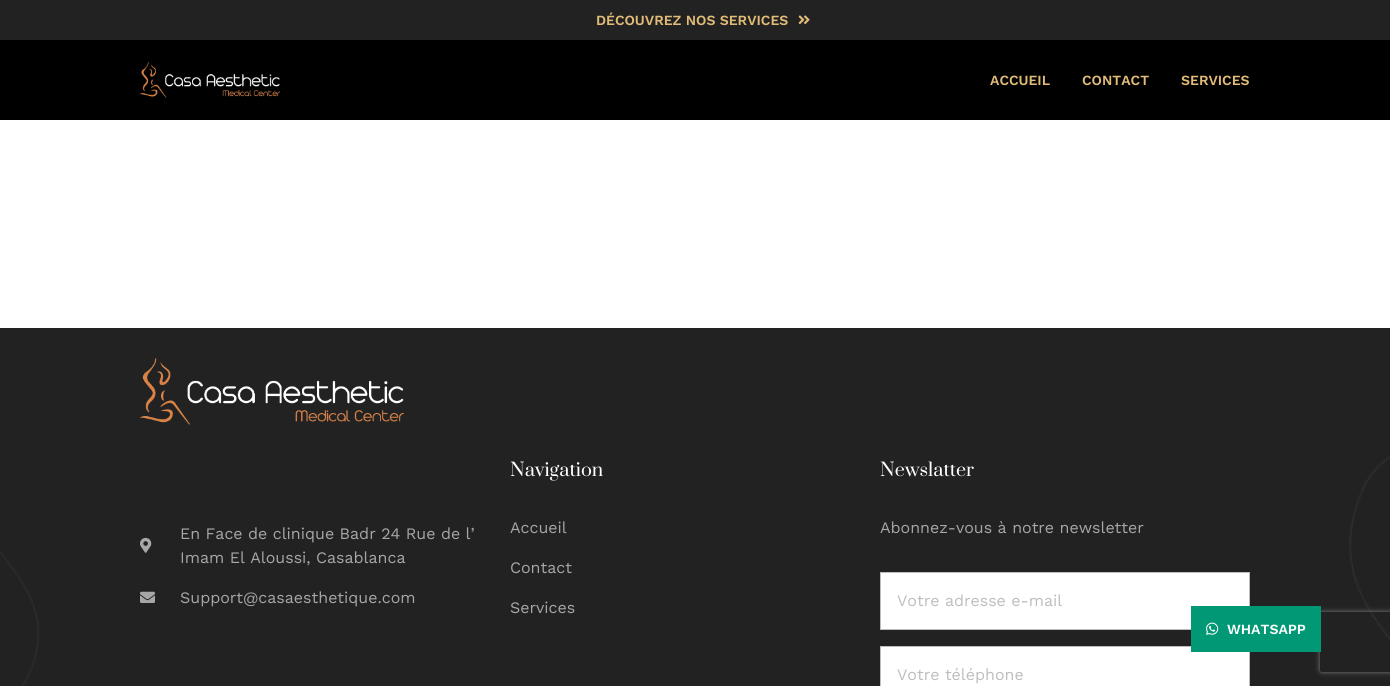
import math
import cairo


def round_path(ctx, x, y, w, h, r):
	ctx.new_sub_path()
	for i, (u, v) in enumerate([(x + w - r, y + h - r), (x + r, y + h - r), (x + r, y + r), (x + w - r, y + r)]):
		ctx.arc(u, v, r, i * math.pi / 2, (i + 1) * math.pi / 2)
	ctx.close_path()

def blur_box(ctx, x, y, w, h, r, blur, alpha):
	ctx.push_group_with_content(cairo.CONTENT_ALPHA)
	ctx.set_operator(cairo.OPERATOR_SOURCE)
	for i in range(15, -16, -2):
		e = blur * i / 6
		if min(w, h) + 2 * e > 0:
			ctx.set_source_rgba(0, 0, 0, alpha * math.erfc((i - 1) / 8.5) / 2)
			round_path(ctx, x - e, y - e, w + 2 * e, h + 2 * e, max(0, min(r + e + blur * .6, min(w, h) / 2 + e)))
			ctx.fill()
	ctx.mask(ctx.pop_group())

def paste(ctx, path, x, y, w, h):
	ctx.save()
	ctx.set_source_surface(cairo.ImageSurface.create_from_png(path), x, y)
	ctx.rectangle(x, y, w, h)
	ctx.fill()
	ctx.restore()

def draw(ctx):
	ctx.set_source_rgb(1, 1, 1)
	ctx.paint()
	ctx.set_source_rgb(0.133, 0.133, 0.133)
	ctx.rectangle(0, 0, 1390, 40)
	ctx.fill()
	ctx.select_font_face('Work Sans SemiBold')
	ctx.set_font_size(14)
	ctx.set_source_rgb(0.882, 0.733, 0.471)
	ctx.move_to(596, 25)
	ctx.show_text('DÉCOUVREZ NOS SERVICES')
	paste(ctx, 'media/1.png', 798, 15, 12, 10)
	ctx.set_source_rgb(0.133, 0.133, 0.133)
	ctx.rectangle(0, 328, 1390, 358)
	ctx.fill()
	paste(ctx, 'media/4.png', 0, 456, 1390, 230)
	ctx.set_source_rgb(1, 1, 1)
	ctx.rectangle(880.5, 572.5, 369, 57)
	ctx.fill_preserve()
	ctx.set_source_rgb(0.741, 0.741, 0.741)
	ctx.set_line_width(1)
	ctx.stroke()
	ctx.set_source_rgb(1, 1, 1)
	ctx.rectangle(880.5, 646.5, 369, 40)
	ctx.fill_preserve()
	ctx.set_source_rgb(0.741, 0.741, 0.741)
	ctx.stroke()
	ctx.save()
	ctx.set_fill_rule(cairo.FILL_RULE_EVEN_ODD)
	ctx.new_path()
	ctx.move_to(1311, 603)
	ctx.line_to(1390, 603)
	ctx.line_to(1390, 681)
	ctx.line_to(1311, 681)
	ctx.close_path()
	ctx.move_to(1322, 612)
	ctx.line_to(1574, 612)
	ctx.curve_to(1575, 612, 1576, 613, 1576, 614)
	ctx.line_to(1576, 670)
	ctx.curve_to(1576, 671, 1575, 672, 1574, 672)
	ctx.line_to(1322, 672)
	ctx.curve_to(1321, 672, 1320, 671, 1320, 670)
	ctx.line_to(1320, 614)
	ctx.curve_to(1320, 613, 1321, 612, 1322, 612)
	ctx.close_path()
	ctx.clip()
	ctx.set_source_rgb(0.502, 0.502, 0.502)
	blur_box(ctx, 1320, 612, 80, 60, 2, 2.5, 1)
	ctx.restore()
	ctx.set_source_rgb(0.004, 0.6, 0.459)
	ctx.rectangle(1191, 606, 130, 46)
	ctx.fill()
	paste(ctx, 'media/2.png', 1206, 622, 13, 13)
	ctx.set_source_rgb(1, 1, 1)
	ctx.move_to(1227, 634)
	ctx.show_text('WHATSAPP')
	ctx.set_source_rgb(0, 0, 0)
	ctx.rectangle(0, 40, 1390, 80)
	ctx.fill()
	paste(ctx, 'media/3.png', 140, 62, 140, 36)
	ctx.set_source_rgb(0.882, 0.733, 0.471)
	for x, y, s in [
		(990, 85, 'ACCUEIL'),
		(1082, 85, 'CONTACT'),
		(1181, 85, 'SERVICES'),
	]:
		ctx.move_to(x, y)
		ctx.show_text(s)
	paste(ctx, 'media/5.png', 140, 358, 264, 67)
	paste(ctx, 'media/6.png', 140, 537, 12, 16)
	ctx.select_font_face('Work Sans')
	ctx.set_font_size(16)
	ctx.set_source_rgb(0.655, 0.655, 0.655)
	ctx.move_to(180, 539)
	ctx.show_text('En Face de clinique Badr 24 Rue de l’')
	ctx.move_to(180, 563)
	ctx.show_text('Imam El Aloussi, Casablanca')
	paste(ctx, 'media/7.png', 140, 591, 15, 12)
	ctx.move_to(180, 603)
	ctx.show_text('Support@casaesthetique.com')
	ctx.select_font_face('Prata')
	ctx.set_font_size(18)
	ctx.set_source_rgb(1, 1, 1)
	ctx.move_to(510, 476)
	ctx.show_text('Navigation')
	ctx.select_font_face('Work Sans')
	ctx.set_font_size(16)
	ctx.set_source_rgb(0.655, 0.655, 0.655)
	for x, y, s in [
		(510, 533, 'Accueil'),
		(510, 573, 'Contact'),
		(510, 613, 'Services'),
	]:
		ctx.move_to(x, y)
		ctx.show_text(s)
	ctx.select_font_face('Prata')
	ctx.set_font_size(18)
	ctx.set_source_rgb(1, 1, 1)
	ctx.move_to(880, 476)
	ctx.show_text('Newslatter')
	ctx.select_font_face('Work Sans')
	ctx.set_font_size(16)
	ctx.set_source_rgb(0.655, 0.655, 0.655)
	ctx.move_to(880, 533)
	ctx.show_text('Abonnez-vous à notre newsletter')
	ctx.set_source_rgb(0.741, 0.741, 0.741)
	ctx.move_to(897, 606)
	ctx.show_text('Votre adresse e-mail')
	ctx.move_to(897, 680)
	ctx.show_text('Votre téléphone')


surface = cairo.ImageSurface(cairo.FORMAT_RGB24, 1390, 686)
ctx = cairo.Context(surface)
options = cairo.FontOptions()
options.set_hint_metrics(cairo.HINT_METRICS_OFF)
options.set_hint_style(cairo.HINT_STYLE_NONE)
ctx.set_font_options(options)
ctx.set_miter_limit(4)
draw(ctx)
surface.write_to_png('image.png')
